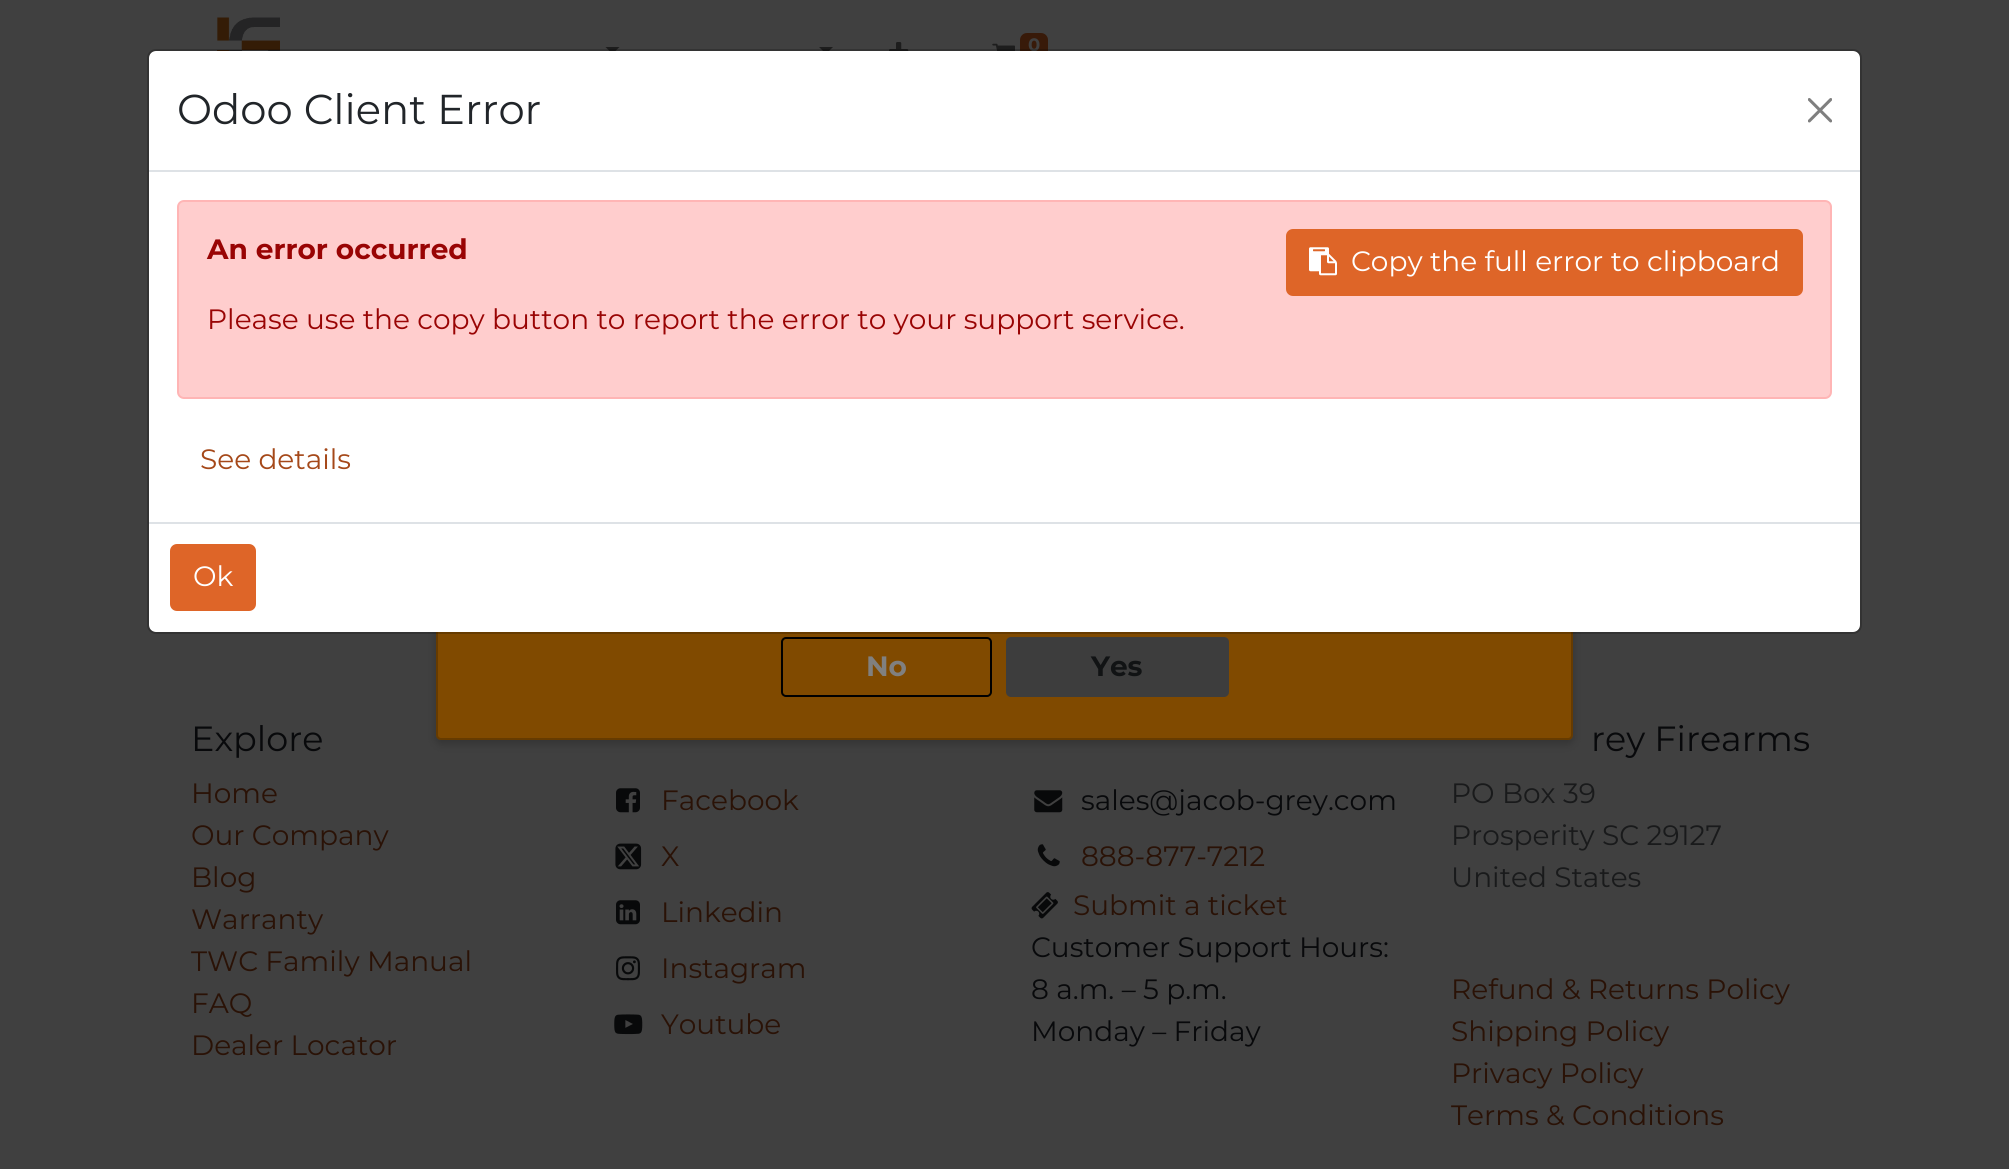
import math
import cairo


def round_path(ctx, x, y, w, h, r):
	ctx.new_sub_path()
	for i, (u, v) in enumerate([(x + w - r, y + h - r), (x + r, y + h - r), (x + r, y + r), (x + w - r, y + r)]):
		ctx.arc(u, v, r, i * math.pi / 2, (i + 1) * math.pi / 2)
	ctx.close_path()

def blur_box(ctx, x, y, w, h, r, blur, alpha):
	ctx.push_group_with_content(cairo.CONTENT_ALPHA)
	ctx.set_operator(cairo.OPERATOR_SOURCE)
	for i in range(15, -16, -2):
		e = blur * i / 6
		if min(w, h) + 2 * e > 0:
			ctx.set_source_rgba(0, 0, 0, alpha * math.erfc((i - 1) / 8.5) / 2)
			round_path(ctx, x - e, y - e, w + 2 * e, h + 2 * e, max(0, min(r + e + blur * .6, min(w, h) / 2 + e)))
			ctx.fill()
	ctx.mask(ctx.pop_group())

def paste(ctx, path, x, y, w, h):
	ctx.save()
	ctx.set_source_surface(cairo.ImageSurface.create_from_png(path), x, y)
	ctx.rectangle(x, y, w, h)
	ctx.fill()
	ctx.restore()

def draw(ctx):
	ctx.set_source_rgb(0.251, 0.251, 0.251)
	ctx.paint()
	paste(ctx, 'media/1.png', 217, 17, 63, 34)
	ctx.set_source_rgb(0.114, 0.114, 0.114)
	ctx.new_path()
	ctx.move_to(605.5, 47)
	ctx.line_to(619.5, 47)
	ctx.line_to(612.5, 54)
	ctx.close_path()
	ctx.fill()
	ctx.new_path()
	ctx.move_to(819, 47)
	ctx.line_to(833, 47)
	ctx.line_to(826, 54)
	ctx.close_path()
	ctx.fill()
	paste(ctx, 'media/2.png', 889, 42, 20, 9)
	paste(ctx, 'media/3.png', 992, 43, 23, 8)
	ctx.set_source_rgb(0.22, 0.102, 0.039)
	round_path(ctx, 1020, 33, 28, 27, 7)
	ctx.fill()
	ctx.select_font_face('Montserrat', cairo.FONT_SLANT_NORMAL, cairo.FONT_WEIGHT_BOLD)
	ctx.set_font_size(18)
	ctx.set_source_rgb(0.251, 0.251, 0.251)
	ctx.move_to(1028, 51)
	ctx.show_text('0')
	ctx.select_font_face('Montserrat')
	ctx.set_font_size(35)
	ctx.set_source_rgb(0.035, 0.039, 0.043)
	ctx.move_to(191, 751)
	ctx.show_text('Explore')
	ctx.set_font_size(28)
	ctx.set_source_rgb(0.165, 0.071, 0.027)
	for x, y, s in [
		(191, 803, 'Home'),
		(191, 845, 'Our Company'),
		(191, 887, 'Blog'),
		(191, 929, 'Warranty'),
		(191, 971, 'TWC Family Manual'),
		(191, 1013, 'FAQ'),
		(191, 1055, 'Dealer Locator'),
	]:
		ctx.move_to(x, y)
		ctx.show_text(s)
	paste(ctx, 'media/4.png', 616, 788, 24, 25)
	ctx.move_to(661, 810)
	ctx.show_text('Facebook')
	paste(ctx, 'media/5.png', 615, 843, 27, 27)
	ctx.move_to(661, 866)
	ctx.show_text('X')
	paste(ctx, 'media/6.png', 616, 900, 24, 25)
	ctx.move_to(661, 922)
	ctx.show_text('Linkedin')
	paste(ctx, 'media/7.png', 616, 956, 24, 25)
	ctx.move_to(661, 978)
	ctx.show_text('Instagram')
	paste(ctx, 'media/8.png', 614, 1014, 29, 21)
	ctx.move_to(661, 1034)
	ctx.show_text('Youtube')
	paste(ctx, 'media/9.png', 1034, 790, 29, 23)
	ctx.set_source_rgb(0.035, 0.039, 0.043)
	ctx.move_to(1081, 810)
	ctx.show_text('sales@jacob-grey.com')
	paste(ctx, 'media/10.png', 1037, 844, 23, 23)
	ctx.set_source_rgb(0.165, 0.071, 0.027)
	ctx.move_to(1081, 866)
	ctx.show_text('888-877-7212')
	paste(ctx, 'media/11.png', 1031, 892, 27, 27)
	ctx.move_to(1073, 915)
	ctx.show_text('Submit a ticket')
	ctx.set_source_rgb(0.035, 0.039, 0.043)
	for x, y, s in [
		(1031, 957, 'Customer Support Hours:'),
		(1031, 999, '8 a.m. – 5 p.m.'),
		(1031, 1041, 'Monday – Friday'),
	]:
		ctx.move_to(x, y)
		ctx.show_text(s)
	ctx.set_font_size(35)
	ctx.move_to(1591, 751)
	ctx.show_text('rey Firearms')
	ctx.set_font_size(28)
	ctx.set_source_rgb(0.098, 0.102, 0.106)
	for x, y, s in [
		(1451, 803, 'PO Box 39'),
		(1451, 845, 'Prosperity SC 29127'),
		(1451, 887, 'United States'),
	]:
		ctx.move_to(x, y)
		ctx.show_text(s)
	ctx.set_source_rgb(0.165, 0.071, 0.027)
	for x, y, s in [
		(1451, 999, 'Refund & Returns Policy'),
		(1451, 1041, 'Shipping Policy'),
		(1451, 1083, 'Privacy Policy'),
		(1451, 1125, 'Terms & Conditions'),
	]:
		ctx.move_to(x, y)
		ctx.show_text(s)
	ctx.set_source_rgb(0, 0, 0)
	blur_box(ctx, 436, 431, 1137, 313, 5, 4.5, 0.2)
	ctx.set_source_rgb(0.502, 0.29, 0)
	round_path(ctx, 436, 427, 1137, 313, 5)
	ctx.fill()
	round_path(ctx, 437, 428, 1135, 311, 4)
	ctx.set_source_rgba(0, 0, 0, 0.2)
	ctx.stroke()
	ctx.set_source_rgb(1, 1, 1)
	round_path(ctx, 149, 51, 1711, 581, 7)
	ctx.fill()
	round_path(ctx, 148, 50, 1713, 583, 8)
	ctx.set_source_rgba(0, 0, 0, 0.2)
	ctx.stroke()
	ctx.set_source_rgb(0.871, 0.886, 0.902)
	ctx.rectangle(149, 170, 1711, 2)
	ctx.fill()
	ctx.set_font_size(41.75)
	ctx.set_source_rgb(0.129, 0.145, 0.161)
	ctx.move_to(177, 124)
	ctx.show_text('Odoo Client Error')
	paste(ctx, 'media/12.png', 1808, 98, 24, 25)
	ctx.set_source_rgb(1, 0.804, 0.804)
	round_path(ctx, 178, 201, 1653, 197, 6)
	ctx.fill_preserve()
	ctx.set_source_rgb(1, 0.71, 0.71)
	ctx.stroke()
	ctx.select_font_face('Montserrat', cairo.FONT_SLANT_NORMAL, cairo.FONT_WEIGHT_BOLD)
	ctx.set_font_size(28)
	ctx.set_source_rgb(0.6, 0.016, 0.016)
	ctx.move_to(207, 259)
	ctx.show_text('An error occurred')
	ctx.set_source_rgb(0.871, 0.396, 0.157)
	round_path(ctx, 1287, 230, 515, 65, 6)
	ctx.fill_preserve()
	ctx.stroke()
	paste(ctx, 'media/13.png', 1309, 247, 28, 29)
	ctx.select_font_face('Montserrat')
	ctx.set_source_rgb(1, 1, 1)
	ctx.move_to(1351, 271)
	ctx.show_text('Copy the full error to clipboard')
	ctx.set_source_rgb(0.6, 0.016, 0.016)
	ctx.move_to(207, 329)
	ctx.show_text('Please use the copy button to report the error to your support service.')
	ctx.set_source_rgb(0.647, 0.282, 0.098)
	ctx.move_to(200, 469)
	ctx.show_text('See details')
	ctx.set_source_rgb(0.871, 0.886, 0.902)
	ctx.rectangle(149, 522, 1711, 2)
	ctx.fill()
	ctx.set_source_rgb(0.871, 0.396, 0.157)
	round_path(ctx, 171, 545, 84, 65, 6)
	ctx.fill_preserve()
	ctx.stroke()
	ctx.set_source_rgb(1, 1, 1)
	ctx.move_to(193, 586)
	ctx.show_text('Ok')
	round_path(ctx, 782, 638, 209, 58, 4)
	ctx.set_source_rgb(0, 0, 0)
	ctx.stroke()
	ctx.select_font_face('Montserrat', cairo.FONT_SLANT_NORMAL, cairo.FONT_WEIGHT_BOLD)
	ctx.set_source_rgb(0.502, 0.502, 0.502)
	ctx.move_to(866, 676)
	ctx.show_text('No')
	ctx.set_source_rgb(0.239, 0.239, 0.239)
	round_path(ctx, 1006, 637, 223, 60, 5)
	ctx.fill()
	ctx.set_source_rgb(0.067, 0.075, 0.082)
	ctx.move_to(1091, 676)
	ctx.show_text('Yes')


surface = cairo.ImageSurface(cairo.FORMAT_RGB24, 2009, 1169)
ctx = cairo.Context(surface)
options = cairo.FontOptions()
options.set_hint_metrics(cairo.HINT_METRICS_OFF)
options.set_hint_style(cairo.HINT_STYLE_NONE)
ctx.set_font_options(options)
ctx.set_miter_limit(4)
draw(ctx)
surface.write_to_png('image.png')
